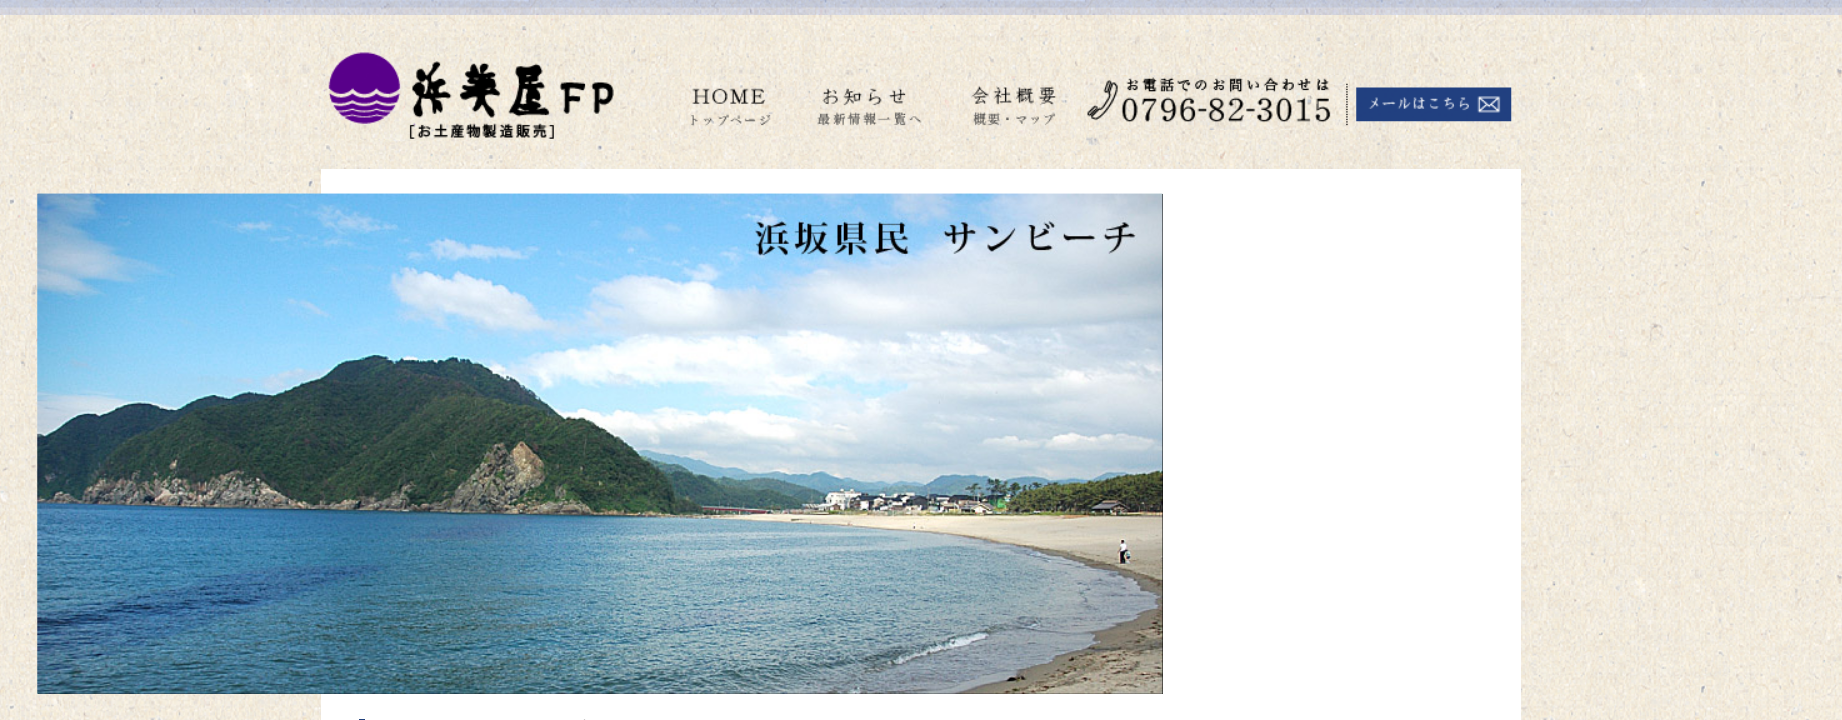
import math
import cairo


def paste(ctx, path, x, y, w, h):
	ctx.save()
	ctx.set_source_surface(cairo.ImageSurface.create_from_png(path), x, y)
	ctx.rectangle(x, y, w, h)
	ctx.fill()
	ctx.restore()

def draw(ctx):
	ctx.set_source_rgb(1, 1, 1)
	ctx.paint()
	paste(ctx, 'media/1.png', 0, 15, 1842, 705)
	paste(ctx, 'media/2.png', 0, 0, 1842, 15)
	paste(ctx, 'media/3.png', 321, 37, 296, 105)
	paste(ctx, 'media/4.png', 678, 81, 120, 56)
	paste(ctx, 'media/5.png', 797, 81, 145, 56)
	paste(ctx, 'media/6.png', 941, 81, 128, 56)
	paste(ctx, 'media/7.png', 1083, 75, 267, 55)
	paste(ctx, 'media/8.png', 1356, 87, 156, 35)
	ctx.set_source_rgb(1, 1, 1)
	ctx.rectangle(321, 169, 1200, 551)
	ctx.fill()
	paste(ctx, 'media/9.png', 37, 193, 1126, 501)
	ctx.set_source_rgb(0, 0, 0)
	ctx.rectangle(38, 194, 1125, 500)
	ctx.fill()
	paste(ctx, 'media/10.png', 37, 193, 1126, 501)
	ctx.new_path()
	ctx.move_to(584.5, 719)
	ctx.line_to(584.5, 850)
	ctx.set_source_rgb(0.8, 0.8, 0.8)
	ctx.set_line_width(1.2)
	ctx.set_dash([1.25, 1.25])
	ctx.stroke()
	ctx.set_source_rgb(0.129, 0.255, 0.486)
	ctx.rectangle(359, 719, 6, 1)
	ctx.fill()


surface = cairo.ImageSurface(cairo.FORMAT_RGB24, 1842, 720)
ctx = cairo.Context(surface)
options = cairo.FontOptions()
options.set_hint_metrics(cairo.HINT_METRICS_OFF)
options.set_hint_style(cairo.HINT_STYLE_NONE)
ctx.set_font_options(options)
ctx.set_miter_limit(4)
draw(ctx)
surface.write_to_png('image.png')
